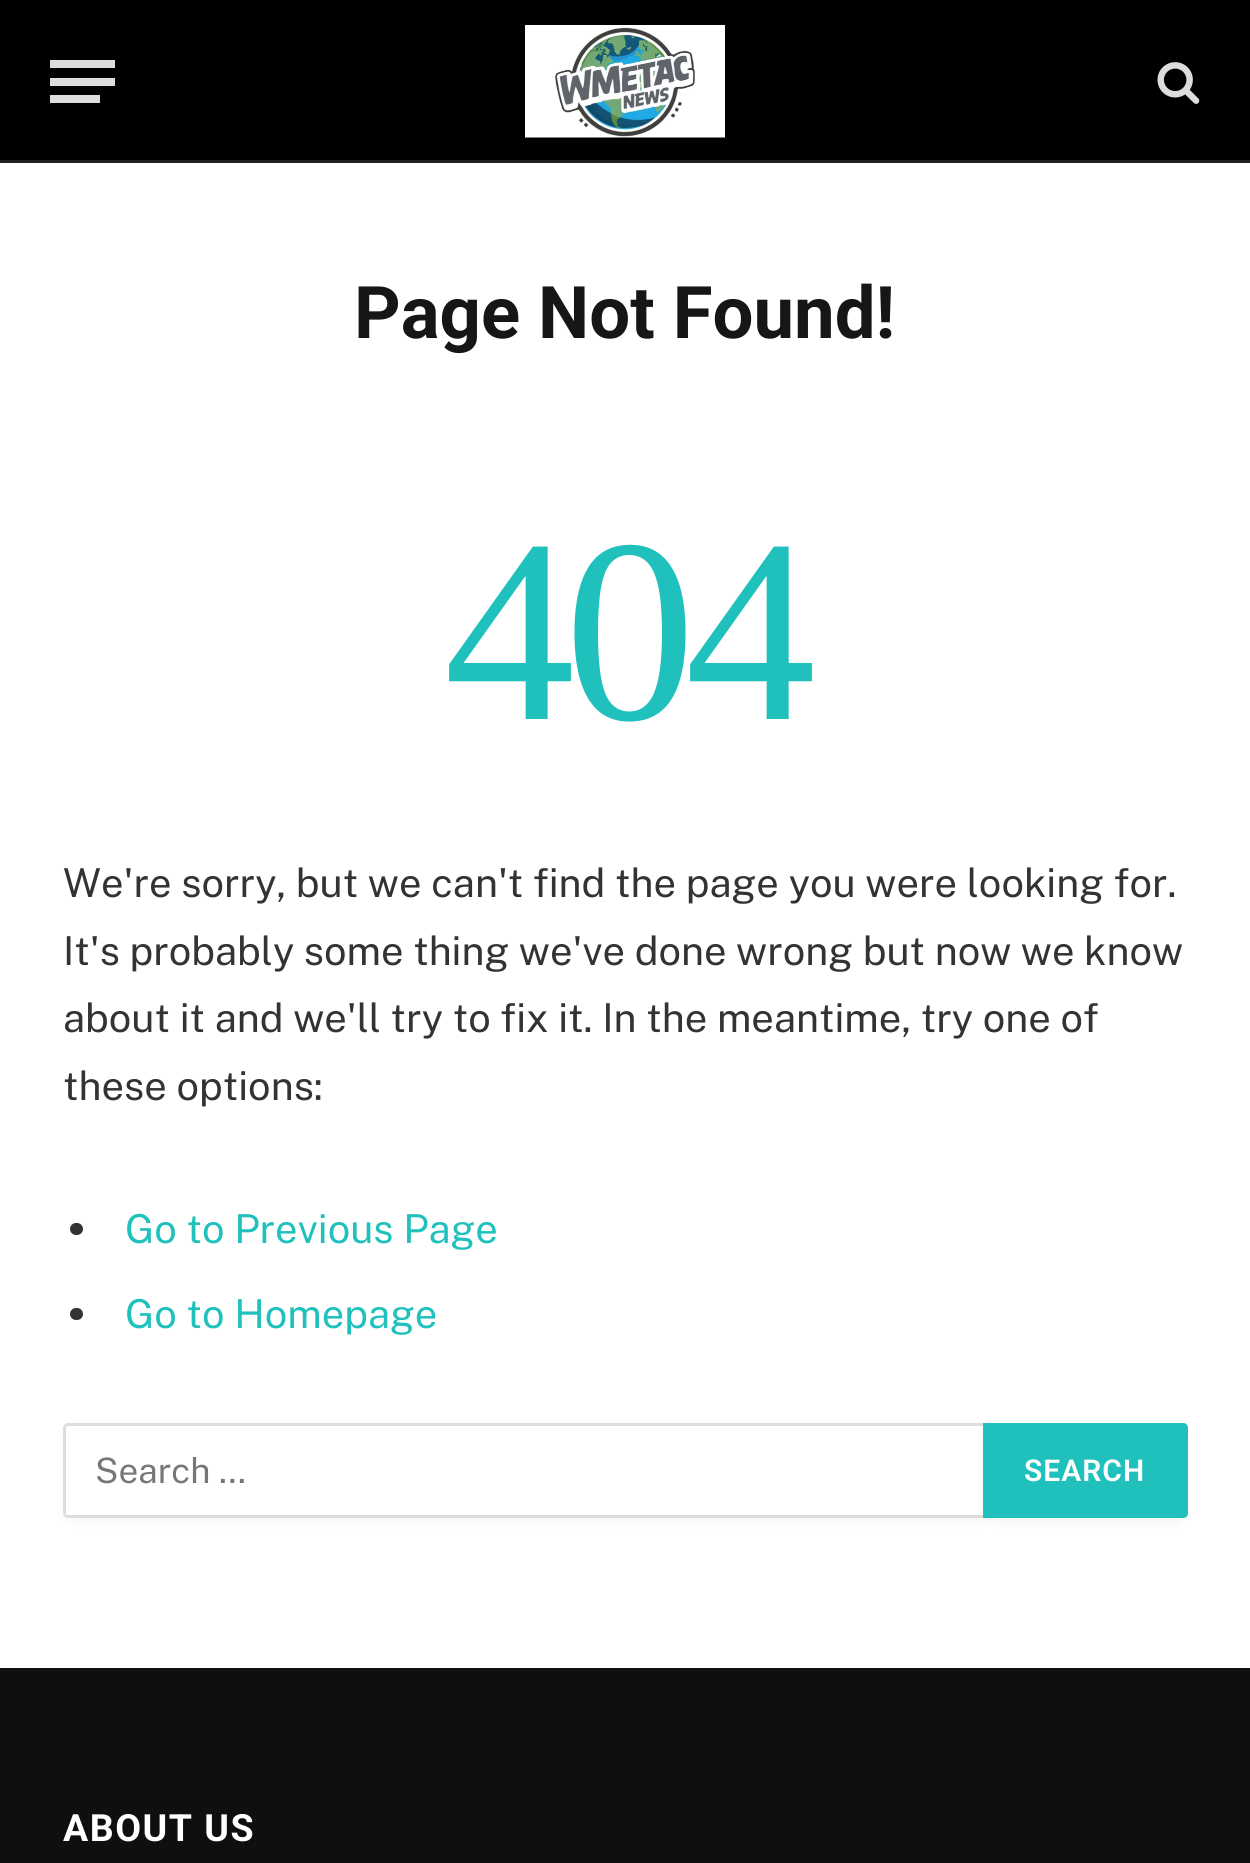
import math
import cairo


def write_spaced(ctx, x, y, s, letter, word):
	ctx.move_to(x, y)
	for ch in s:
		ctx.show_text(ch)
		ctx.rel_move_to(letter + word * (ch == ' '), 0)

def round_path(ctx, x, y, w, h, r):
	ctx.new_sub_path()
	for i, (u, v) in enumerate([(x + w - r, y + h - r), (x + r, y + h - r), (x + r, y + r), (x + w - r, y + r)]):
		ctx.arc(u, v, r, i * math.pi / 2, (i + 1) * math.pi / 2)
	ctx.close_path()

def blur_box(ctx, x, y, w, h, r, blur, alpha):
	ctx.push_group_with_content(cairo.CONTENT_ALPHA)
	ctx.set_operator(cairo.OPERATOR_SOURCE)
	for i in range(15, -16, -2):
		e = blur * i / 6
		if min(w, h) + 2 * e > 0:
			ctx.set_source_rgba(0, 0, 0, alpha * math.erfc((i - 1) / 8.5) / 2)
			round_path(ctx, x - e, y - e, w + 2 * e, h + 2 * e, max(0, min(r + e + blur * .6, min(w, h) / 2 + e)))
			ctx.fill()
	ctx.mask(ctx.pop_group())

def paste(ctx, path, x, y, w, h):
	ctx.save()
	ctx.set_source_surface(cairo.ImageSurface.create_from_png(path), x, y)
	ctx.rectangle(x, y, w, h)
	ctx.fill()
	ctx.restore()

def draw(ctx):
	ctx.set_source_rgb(1, 1, 1)
	ctx.paint()
	ctx.set_source_rgb(0, 0, 0)
	ctx.rectangle(0, 0, 1250, 160)
	ctx.fill()
	ctx.set_source_rgb(0.133, 0.133, 0.133)
	ctx.rectangle(0, 160, 1250, 3)
	ctx.fill()
	ctx.set_source_rgb(0.867, 0.867, 0.867)
	ctx.rectangle(50, 95, 50, 8)
	ctx.rectangle(50, 60, 65, 8)
	ctx.rectangle(50, 78, 65, 8)
	ctx.fill()
	paste(ctx, 'media/1.png', 525, 25, 200, 113)
	paste(ctx, 'media/2.png', 1157, 62, 43, 42)
	ctx.select_font_face('Roboto', cairo.FONT_SLANT_NORMAL, cairo.FONT_WEIGHT_BOLD)
	ctx.set_font_size(72.5)
	ctx.set_source_rgb(0.086, 0.086, 0.086)
	ctx.move_to(354, 338)
	ctx.show_text('Page Not Found!')
	ctx.select_font_face('Liberation Serif')
	ctx.set_font_size(262)
	ctx.set_source_rgb(0.125, 0.757, 0.741)
	write_spaced(ctx, 444, 719, '404', -10.5, 0)
	ctx.select_font_face('Public Sans')
	ctx.set_font_size(39.85)
	ctx.set_source_rgb(0.2, 0.2, 0.2)
	ctx.move_to(63, 897)
	ctx.show_text('We\'re sorry, but we can\'t find the page you were looking for.')
	write_spaced(ctx, 63, 965, 'It\'s probably some thing we\'ve done wrong but now we know', 0, -0.1)
	ctx.move_to(63, 1032)
	ctx.show_text('about it and we\'ll try to fix it. In the meantime, try one of')
	ctx.move_to(63, 1100)
	ctx.show_text('these options:')
	round_path(ctx, 70, 1223, 13, 12, 6)
	ctx.fill()
	ctx.set_source_rgb(0.125, 0.757, 0.741)
	ctx.move_to(125, 1243)
	ctx.show_text('Go to Previous Page')
	ctx.set_source_rgb(0.2, 0.2, 0.2)
	round_path(ctx, 70, 1308, 13, 12, 6)
	ctx.fill()
	ctx.set_source_rgb(0.125, 0.757, 0.741)
	ctx.move_to(125, 1328)
	ctx.show_text('Go to Homepage')
	ctx.set_source_rgb(0, 0, 0)
	blur_box(ctx, 73, 1438, 905, 75, 0, 9, 0.1)
	ctx.set_source_rgb(1, 1, 1)
	round_path(ctx, 64.5, 1424.5, 922, 92, 3.5)
	ctx.fill_preserve()
	ctx.set_source_rgb(0.867, 0.867, 0.867)
	ctx.set_line_width(3)
	ctx.stroke()
	ctx.set_font_size(35)
	ctx.set_source_rgb(0.467, 0.467, 0.467)
	ctx.move_to(95, 1483)
	ctx.show_text('Search …')
	ctx.set_source_rgb(0, 0, 0)
	blur_box(ctx, 993, 1438, 185, 75, 0, 9, 0.16)
	ctx.set_source_rgb(0.125, 0.757, 0.741)
	ctx.new_path()
	ctx.move_to(983, 1423)
	ctx.line_to(1183, 1423)
	ctx.curve_to(1186, 1423, 1188, 1425, 1188, 1428)
	ctx.line_to(1188, 1513)
	ctx.curve_to(1188, 1516, 1186, 1518, 1183, 1518)
	ctx.line_to(983, 1518)
	ctx.close_path()
	ctx.fill()
	ctx.select_font_face('Roboto SemiBold')
	ctx.set_font_size(30)
	ctx.set_source_rgb(1, 1, 1)
	write_spaced(ctx, 1024, 1481, 'SEARCH', 1, 0)
	ctx.set_source_rgb(0.059, 0.059, 0.067)
	ctx.rectangle(0, 1668, 1250, 195)
	ctx.fill()
	ctx.select_font_face('Roboto', cairo.FONT_SLANT_NORMAL, cairo.FONT_WEIGHT_BOLD)
	ctx.set_font_size(37.5)
	ctx.set_source_rgb(1, 1, 1)
	write_spaced(ctx, 63, 1841, 'ABOUT US', 1.5, 0)


surface = cairo.ImageSurface(cairo.FORMAT_RGB24, 1250, 1863)
ctx = cairo.Context(surface)
options = cairo.FontOptions()
options.set_hint_metrics(cairo.HINT_METRICS_OFF)
options.set_hint_style(cairo.HINT_STYLE_NONE)
ctx.set_font_options(options)
ctx.set_miter_limit(4)
draw(ctx)
surface.write_to_png('image.png')
